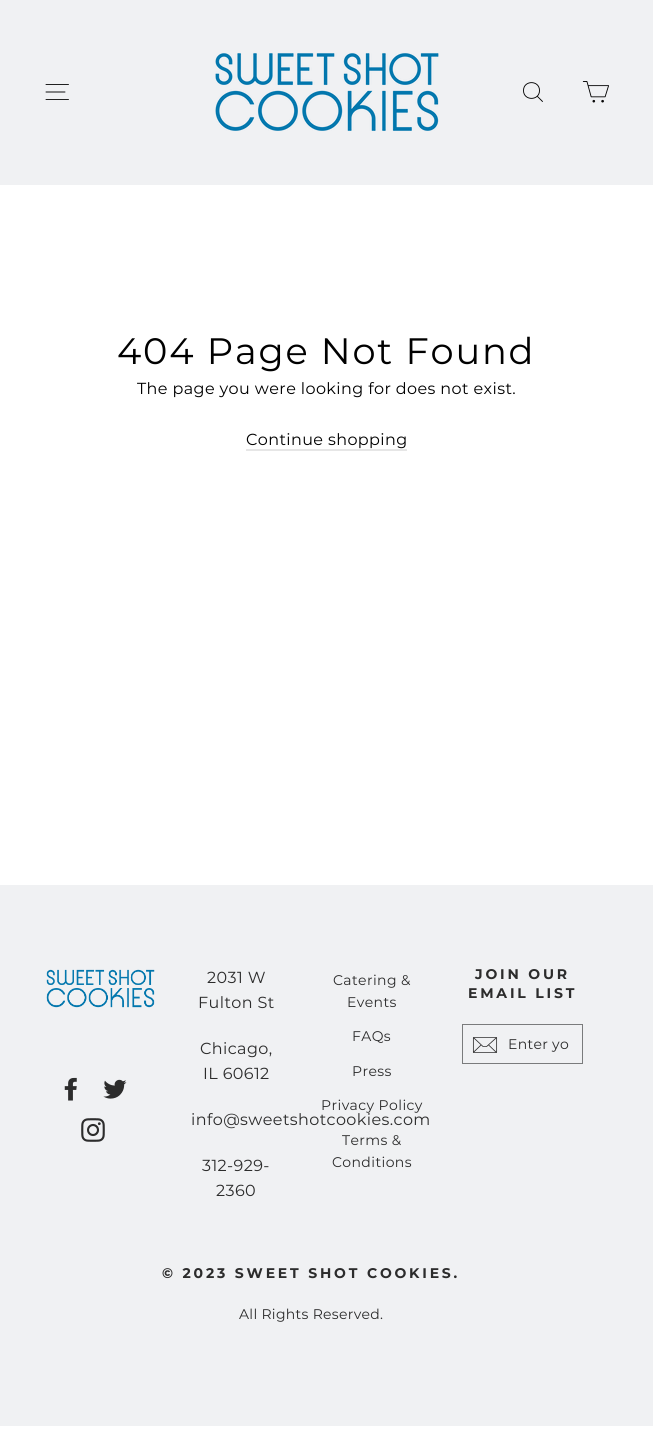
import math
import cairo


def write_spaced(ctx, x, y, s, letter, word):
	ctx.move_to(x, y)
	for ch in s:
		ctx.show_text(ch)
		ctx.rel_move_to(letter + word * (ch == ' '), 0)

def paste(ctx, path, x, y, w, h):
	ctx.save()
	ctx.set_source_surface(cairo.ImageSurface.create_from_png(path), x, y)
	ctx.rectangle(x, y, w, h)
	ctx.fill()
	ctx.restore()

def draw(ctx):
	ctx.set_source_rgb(1, 1, 1)
	ctx.paint()
	ctx.set_source_rgb(0.941, 0.945, 0.953)
	ctx.rectangle(0, 0, 653, 185)
	ctx.fill()
	ctx.new_path()
	ctx.move_to(46, 84.5)
	ctx.line_to(68.5, 84.5)
	ctx.move_to(46, 92)
	ctx.line_to(65, 92)
	ctx.move_to(46, 99.5)
	ctx.line_to(68.5, 99.5)
	ctx.set_source_rgb(0, 0, 0)
	ctx.set_line_width(0.9)
	ctx.set_line_cap(cairo.LINE_CAP_ROUND)
	ctx.set_line_join(cairo.LINE_JOIN_ROUND)
	ctx.stroke()
	paste(ctx, 'media/1.png', 215, 53, 224, 78)
	ctx.new_path()
	ctx.move_to(539.5, 90.5)
	ctx.curve_to(539.5, 101, 523.5, 101, 523.5, 90.5)
	ctx.curve_to(523.5, 80, 539.5, 80, 539.5, 90.5)
	ctx.close_path()
	ctx.move_to(542.5, 101.5)
	ctx.line_to(537.5, 96.5)
	ctx.stroke()
	paste(ctx, 'media/2.png', 582, 81, 27, 22)
	ctx.select_font_face('Montserrat')
	ctx.set_font_size(36.75)
	write_spaced(ctx, 117, 364, '404 Page Not Found', 1.8, 0)
	ctx.set_font_size(16)
	write_spaced(ctx, 137, 394, 'The page you were looking for does not exist.', 0.4, 0)
	write_spaced(ctx, 246, 445, 'Continue shopping', 0.4, 0)
	ctx.set_source_rgb(0.902, 0.902, 0.902)
	ctx.rectangle(246, 449, 161, 2)
	ctx.fill()
	ctx.set_source_rgb(0.941, 0.945, 0.953)
	ctx.rectangle(0, 885, 653, 541)
	ctx.fill()
	paste(ctx, 'media/3.png', 46, 969, 109, 39)
	paste(ctx, 'media/4.png', 64, 1077, 13, 24)
	paste(ctx, 'media/5.png', 103, 1079, 24, 20)
	paste(ctx, 'media/6.png', 81, 1118, 24, 24)
	ctx.set_source_rgb(0.173, 0.173, 0.173)
	for x, y, s in [
		(207, 983, '2031 W'),
		(198, 1008, 'Fulton St'),
		(200, 1054, 'Chicago,'),
		(203, 1079, 'IL 60612'),
		(191, 1125, 'info@sweetshotcookies.com'),
		(202, 1171, '312-929-'),
		(216, 1196, '2360'),
	]:
		write_spaced(ctx, x, y, s, 0.4, 0)
	ctx.select_font_face('Montserrat', cairo.FONT_SLANT_NORMAL, cairo.FONT_WEIGHT_BOLD)
	ctx.set_font_size(14)
	write_spaced(ctx, 475, 979, 'JOIN OUR', 2.8, 0)
	write_spaced(ctx, 468, 998, 'EMAIL LIST', 2.8, 0)
	ctx.rectangle(462.5, 1024.5, 120, 39)
	ctx.set_source_rgb(0.478, 0.482, 0.486)
	ctx.set_line_width(1)
	ctx.set_line_cap(cairo.LINE_CAP_BUTT)
	ctx.set_line_join(cairo.LINE_JOIN_MITER)
	ctx.stroke()
	paste(ctx, 'media/7.png', 472, 1037, 26, 16)
	ctx.select_font_face('Montserrat')
	ctx.set_source_rgb(0.173, 0.173, 0.173)
	write_spaced(ctx, 508, 1049, 'Enter yo', 0.3, 0)
	for x, y, s in [
		(333, 985, 'Catering &'),
		(347, 1007, 'Events'),
		(352, 1041, 'FAQs'),
		(352, 1076, 'Press'),
		(321, 1110, 'Privacy Policy'),
		(342, 1145, 'Terms &'),
		(332, 1167, 'Conditions'),
	]:
		write_spaced(ctx, x, y, s, 0.4, 0)
	ctx.select_font_face('Montserrat', cairo.FONT_SLANT_NORMAL, cairo.FONT_WEIGHT_BOLD)
	write_spaced(ctx, 162, 1278, '© 2023 SWEET SHOT COOKIES.', 2.8, 0)
	ctx.select_font_face('Montserrat')
	write_spaced(ctx, 239, 1319, 'All Rights Reserved.', 0.3, 0)


surface = cairo.ImageSurface(cairo.FORMAT_RGB24, 653, 1431)
ctx = cairo.Context(surface)
options = cairo.FontOptions()
options.set_hint_metrics(cairo.HINT_METRICS_OFF)
options.set_hint_style(cairo.HINT_STYLE_NONE)
ctx.set_font_options(options)
ctx.set_miter_limit(4)
draw(ctx)
surface.write_to_png('image.png')
